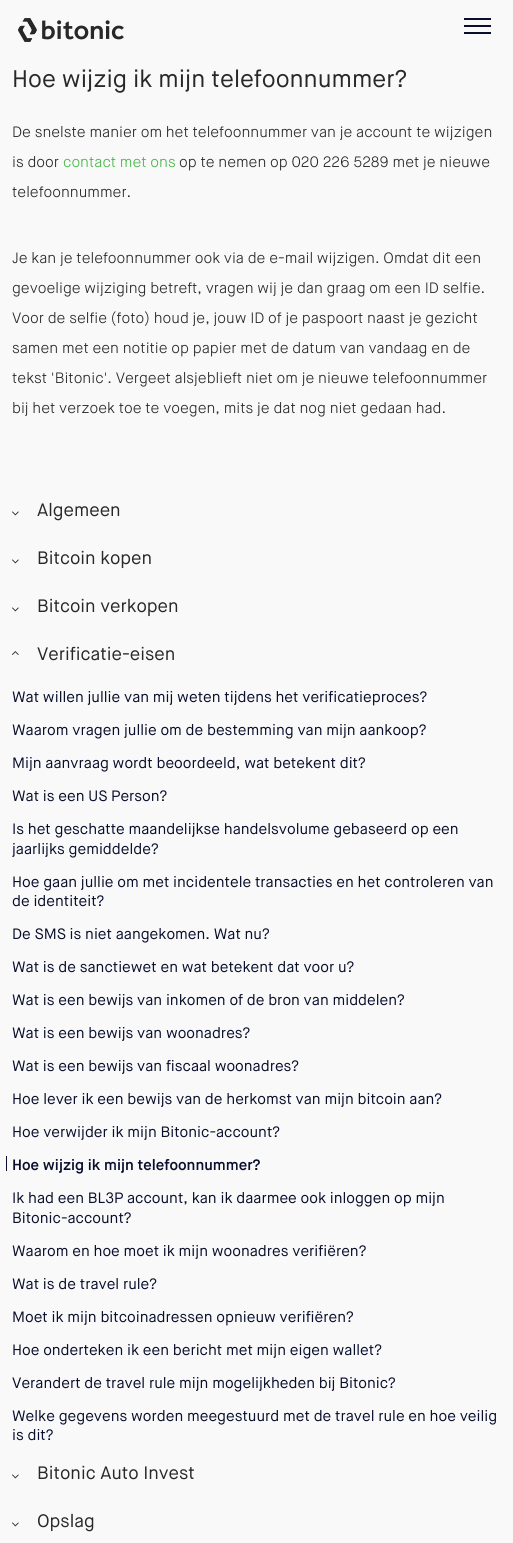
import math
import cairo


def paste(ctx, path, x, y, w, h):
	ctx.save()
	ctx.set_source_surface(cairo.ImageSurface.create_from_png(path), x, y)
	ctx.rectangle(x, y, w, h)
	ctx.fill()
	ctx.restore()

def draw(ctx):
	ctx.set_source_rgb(0.973, 0.973, 0.973)
	ctx.paint()
	paste(ctx, 'media/1.png', 18, 18, 106, 24)
	ctx.set_source_rgb(0.035, 0.055, 0.169)
	ctx.rectangle(464, 18, 27, 2)
	ctx.rectangle(464, 25, 27, 2)
	ctx.rectangle(464, 32, 27, 2)
	ctx.fill()
	ctx.select_font_face('Maison Neue')
	ctx.set_font_size(24)
	ctx.set_source_rgb(0.157, 0.157, 0.157)
	ctx.move_to(12, 87)
	ctx.show_text('Hoe wijzig ik mijn telefoonnummer?')
	ctx.select_font_face('Maison Neue Light')
	ctx.set_font_size(15)
	ctx.move_to(12, 137)
	ctx.show_text('De snelste manier om het telefoonnummer van je account te wijzigen')
	ctx.move_to(12, 167)
	ctx.show_text('is door')
	ctx.set_source_rgb(0.282, 0.71, 0.282)
	ctx.move_to(63, 167)
	ctx.show_text('contact met ons')
	ctx.set_source_rgb(0.157, 0.157, 0.157)
	for x, y, s in [
		(179, 167, 'op te nemen op 020 226 5289 met je nieuwe'),
		(12, 197, 'telefoonnummer.'),
		(12, 263, 'Je kan je telefoonnummer ook via de e-mail wijzigen. Omdat dit een'),
		(12, 293, 'gevoelige wijziging betreft, vragen wij je dan graag om een ID selfie.'),
		(12, 323, 'Voor de selfie (foto) houd je, jouw ID of je paspoort naast je gezicht'),
		(12, 353, 'samen met een notitie op papier met de datum van vandaag en de'),
		(12, 383, 'tekst \'Bitonic\'. Vergeet alsjeblieft niet om je nieuwe telefoonnummer'),
		(12, 413, 'bij het verzoek toe te voegen, mits je dat nog niet gedaan had.'),
	]:
		ctx.move_to(x, y)
		ctx.show_text(s)
	paste(ctx, 'media/2.png', 12, 511, 7, 5)
	ctx.select_font_face('Maison Neue')
	ctx.set_font_size(18)
	ctx.move_to(37, 516)
	ctx.show_text('Algemeen')
	paste(ctx, 'media/2.png', 12, 559, 7, 5)
	ctx.move_to(37, 564)
	ctx.show_text('Bitcoin kopen')
	paste(ctx, 'media/2.png', 12, 607, 7, 5)
	ctx.move_to(37, 612)
	ctx.show_text('Bitcoin verkopen')
	paste(ctx, 'media/3.png', 12, 651, 7, 4)
	ctx.move_to(37, 660)
	ctx.show_text('Verificatie-eisen')
	ctx.set_font_size(15)
	ctx.set_source_rgb(0.035, 0.055, 0.169)
	for x, y, s in [
		(12, 702, 'Wat willen jullie van mij weten tijdens het verificatieproces?'),
		(12, 735, 'Waarom vragen jullie om de bestemming van mijn aankoop?'),
		(12, 768, 'Mijn aanvraag wordt beoordeeld, wat betekent dit?'),
		(12, 801, 'Wat is een US Person?'),
		(12, 834, 'Is het geschatte maandelijkse handelsvolume gebaseerd op een'),
		(12, 854, 'jaarlijks gemiddelde?'),
		(12, 887, 'Hoe gaan jullie om met incidentele transacties en het controleren van'),
		(12, 906, 'de identiteit?'),
		(12, 939, 'De SMS is niet aangekomen. Wat nu?'),
		(12, 972, 'Wat is de sanctiewet en wat betekent dat voor u?'),
		(12, 1005, 'Wat is een bewijs van inkomen of de bron van middelen?'),
		(12, 1038, 'Wat is een bewijs van woonadres?'),
		(12, 1071, 'Wat is een bewijs van fiscaal woonadres?'),
		(12, 1104, 'Hoe lever ik een bewijs van de herkomst van mijn bitcoin aan?'),
		(12, 1137, 'Hoe verwijder ik mijn Bitonic-account?'),
	]:
		ctx.move_to(x, y)
		ctx.show_text(s)
	ctx.rectangle(6, 1156, 1, 15)
	ctx.fill()
	ctx.select_font_face('Maison Neue SemiBold')
	ctx.move_to(12, 1170)
	ctx.show_text('Hoe wijzig ik mijn telefoonnummer?')
	ctx.select_font_face('Maison Neue')
	for x, y, s in [
		(12, 1203, 'Ik had een BL3P account, kan ik daarmee ook inloggen op mijn'),
		(12, 1223, 'Bitonic-account?'),
		(12, 1256, 'Waarom en hoe moet ik mijn woonadres verifiëren?'),
		(12, 1289, 'Wat is de travel rule?'),
		(12, 1322, 'Moet ik mijn bitcoinadressen opnieuw verifiëren?'),
		(12, 1355, 'Hoe onderteken ik een bericht met mijn eigen wallet?'),
		(12, 1388, 'Verandert de travel rule mijn mogelijkheden bij Bitonic?'),
		(12, 1421, 'Welke gegevens worden meegestuurd met de travel rule en hoe veilig'),
		(12, 1440, 'is dit?'),
	]:
		ctx.move_to(x, y)
		ctx.show_text(s)
	paste(ctx, 'media/2.png', 12, 1474, 7, 5)
	ctx.set_font_size(18)
	ctx.set_source_rgb(0.157, 0.157, 0.157)
	ctx.move_to(37, 1479)
	ctx.show_text('Bitonic Auto Invest')
	paste(ctx, 'media/2.png', 12, 1522, 7, 5)
	ctx.move_to(37, 1527)
	ctx.show_text('Opslag')


surface = cairo.ImageSurface(cairo.FORMAT_RGB24, 513, 1543)
ctx = cairo.Context(surface)
options = cairo.FontOptions()
options.set_hint_metrics(cairo.HINT_METRICS_OFF)
options.set_hint_style(cairo.HINT_STYLE_NONE)
ctx.set_font_options(options)
ctx.set_miter_limit(4)
draw(ctx)
surface.write_to_png('image.png')
